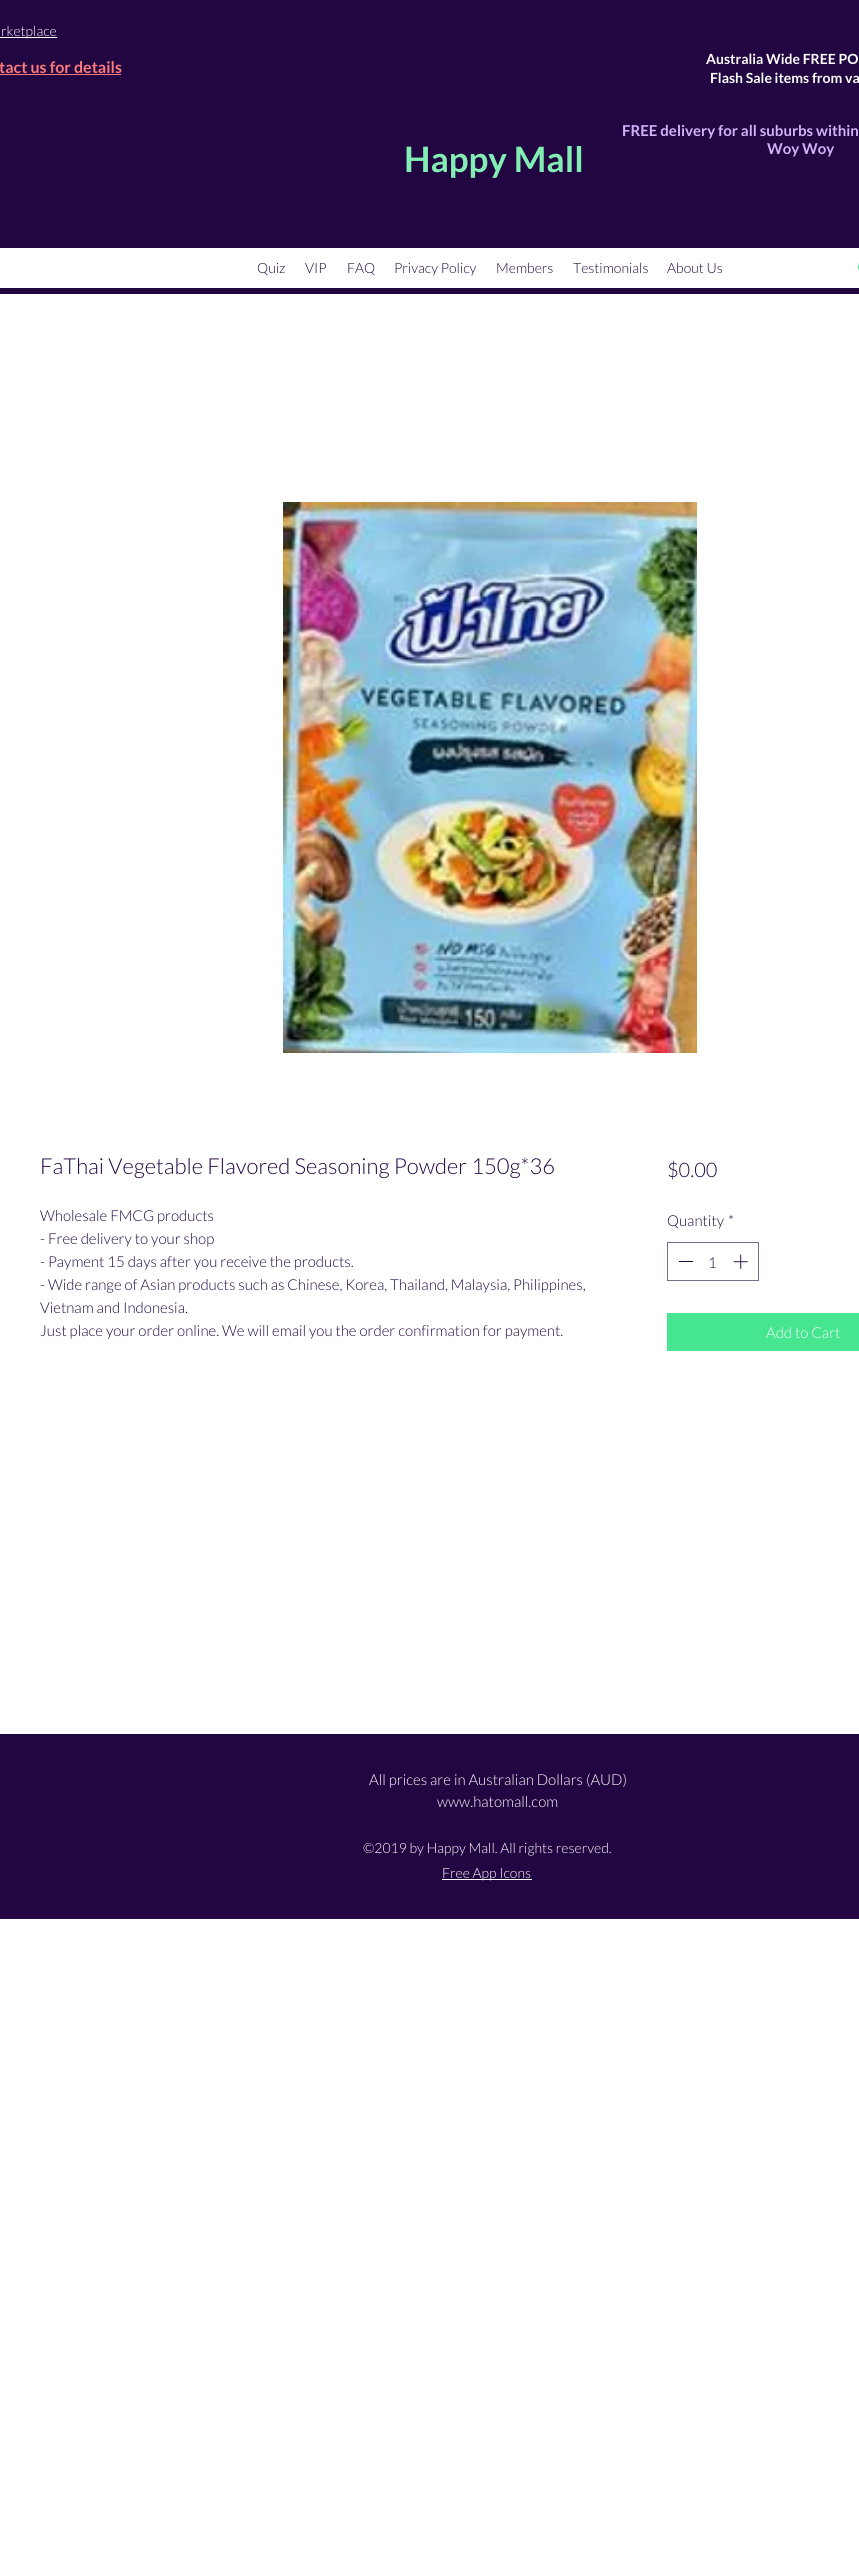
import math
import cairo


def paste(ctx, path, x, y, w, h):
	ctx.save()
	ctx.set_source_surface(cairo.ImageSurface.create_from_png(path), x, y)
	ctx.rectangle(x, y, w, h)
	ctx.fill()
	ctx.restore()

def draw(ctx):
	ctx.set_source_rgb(1, 1, 1)
	ctx.paint()
	ctx.set_source_rgb(0.129, 0.024, 0.255)
	ctx.rectangle(0, 0, 859, 294)
	ctx.fill()
	ctx.set_source_rgb(1, 1, 1)
	ctx.rectangle(0, 37, 57, 1)
	ctx.fill()
	ctx.select_font_face('Lato Light')
	ctx.set_font_size(14)
	ctx.move_to(1, 36)
	ctx.show_text('rketplace')
	ctx.select_font_face('Lato', cairo.FONT_SLANT_NORMAL, cairo.FONT_WEIGHT_BOLD)
	ctx.set_font_size(16)
	ctx.set_source_rgb(0.992, 0.475, 0.486)
	ctx.move_to(-1, 73)
	ctx.show_text('tact us for details')
	ctx.rectangle(0, 74, 121, 1)
	ctx.fill()
	ctx.set_font_size(14)
	ctx.set_source_rgb(1, 1, 1)
	ctx.move_to(706, 64)
	ctx.show_text('Australia Wide FREE PO')
	ctx.move_to(710, 83)
	ctx.show_text('Flash Sale items from va')
	ctx.set_font_size(15)
	ctx.set_source_rgb(0.824, 0.698, 0.973)
	ctx.move_to(622, 136)
	ctx.show_text('FREE delivery for all suburbs within')
	ctx.move_to(767, 154)
	ctx.show_text('Woy Woy')
	ctx.set_font_size(35)
	ctx.set_source_rgb(0.514, 0.933, 0.706)
	ctx.move_to(404, 172)
	ctx.show_text('Happy Mall')
	ctx.set_source_rgb(1, 1, 1)
	ctx.rectangle(0, 248, 859, 40)
	ctx.fill()
	ctx.select_font_face('Lato Light')
	ctx.set_font_size(14)
	ctx.set_source_rgb(0.129, 0.024, 0.255)
	for x, y, s in [
		(257, 273, 'Quiz'),
		(305, 273, 'VIP'),
		(347, 273, 'FAQ'),
		(394, 273, 'Privacy Policy'),
		(496, 273, 'Members'),
		(573, 273, 'Testimonials'),
		(667, 273, 'About Us'),
	]:
		ctx.move_to(x, y)
		ctx.show_text(s)
	paste(ctx, 'media/1.png', 858, 263, 1, 8)
	paste(ctx, 'media/2.png', 283, 502, 414, 551)
	ctx.set_font_size(22)
	ctx.move_to(40, 1174)
	ctx.show_text('FaThai Vegetable Flavored Seasoning Powder 150g*36')
	ctx.set_font_size(15)
	for x, y, s in [
		(40, 1221, 'Wholesale FMCG products'),
		(40, 1244, '- Free delivery to your shop'),
		(40, 1267, '- Payment 15 days after you receive the products.'),
		(40, 1290, '- Wide range of Asian products such as Chinese, Korea, Thailand, Malaysia, Philippines,'),
		(40, 1313, 'Vietnam and Indonesia.'),
		(40, 1336, 'Just place your order online. We will email you the order confirmation for payment.'),
	]:
		ctx.move_to(x, y)
		ctx.show_text(s)
	ctx.set_font_size(20)
	ctx.move_to(667, 1177)
	ctx.show_text('$0.00')
	ctx.set_font_size(15)
	ctx.move_to(667, 1226)
	ctx.show_text('Quantity')
	ctx.move_to(728, 1226)
	ctx.show_text('*')
	ctx.rectangle(667.5, 1242.5, 91, 38)
	ctx.set_source_rgb(0.478, 0.416, 0.553)
	ctx.set_line_width(1)
	ctx.stroke()
	ctx.set_source_rgb(0.129, 0.024, 0.255)
	ctx.rectangle(679, 1261, 14, 1)
	ctx.fill()
	ctx.move_to(708, 1268)
	ctx.show_text('1')
	paste(ctx, 'media/3.png', 733, 1254, 15, 15)
	ctx.set_source_rgb(0.271, 0.902, 0.561)
	ctx.rectangle(667, 1313, 192, 38)
	ctx.fill()
	ctx.set_source_rgb(1, 1, 1)
	ctx.move_to(766, 1338)
	ctx.show_text('Add to Cart')
	ctx.set_source_rgb(0.129, 0.024, 0.255)
	ctx.rectangle(0, 1734, 859, 185)
	ctx.fill()
	ctx.set_source_rgb(1, 1, 1)
	ctx.move_to(369, 1785)
	ctx.show_text('All prices are in Australian Dollars (AUD)')
	ctx.move_to(437, 1807)
	ctx.show_text('www.hatomall.com')
	ctx.set_font_size(14)
	ctx.move_to(363, 1853)
	ctx.show_text('©2019 by Happy Mall. All rights reserved.')
	ctx.rectangle(442, 1879, 90, 1)
	ctx.fill()
	ctx.move_to(442, 1878)
	ctx.show_text('Free App Icons')


surface = cairo.ImageSurface(cairo.FORMAT_RGB24, 859, 2550)
ctx = cairo.Context(surface)
options = cairo.FontOptions()
options.set_hint_metrics(cairo.HINT_METRICS_OFF)
options.set_hint_style(cairo.HINT_STYLE_NONE)
ctx.set_font_options(options)
ctx.set_miter_limit(4)
draw(ctx)
surface.write_to_png('image.png')
